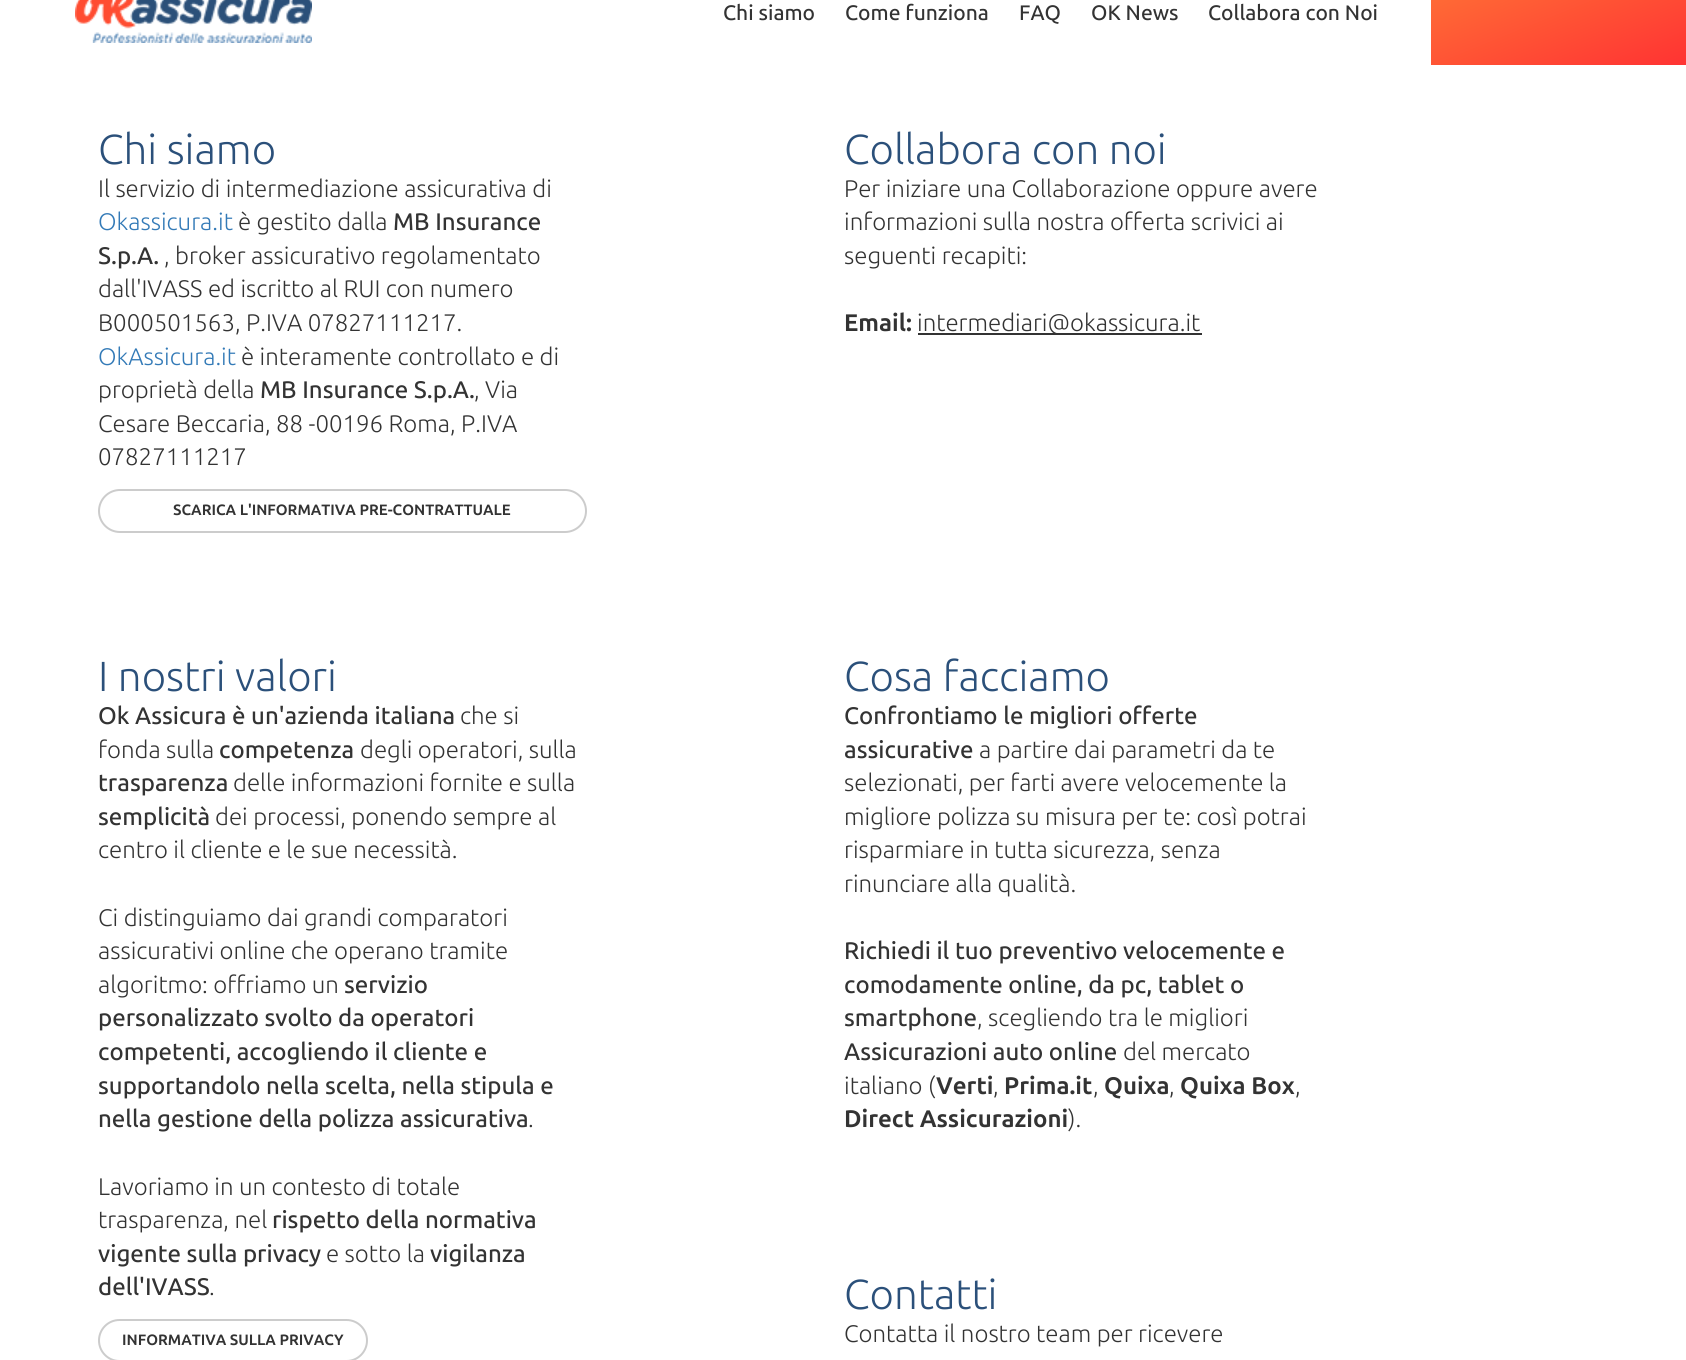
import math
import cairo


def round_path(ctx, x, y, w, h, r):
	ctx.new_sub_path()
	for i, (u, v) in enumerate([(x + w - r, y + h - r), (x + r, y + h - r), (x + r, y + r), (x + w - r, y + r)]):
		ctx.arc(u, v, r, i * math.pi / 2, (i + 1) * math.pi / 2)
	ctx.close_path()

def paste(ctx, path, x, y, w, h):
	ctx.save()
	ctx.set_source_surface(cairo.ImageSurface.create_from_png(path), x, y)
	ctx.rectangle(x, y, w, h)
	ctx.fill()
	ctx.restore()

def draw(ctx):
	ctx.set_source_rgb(1, 1, 1)
	ctx.paint()
	paste(ctx, 'media/1.png', 75, 0, 237, 43)
	ctx.select_font_face('Ubuntu Medium')
	ctx.set_font_size(21)
	ctx.set_source_rgb(0.2, 0.2, 0.2)
	for x, y, s in [
		(723, 20, 'Chi siamo'),
		(845, 20, 'Come funziona'),
		(1019, 20, 'FAQ'),
		(1091, 20, 'OK News'),
		(1208, 20, 'Collabora con Noi'),
	]:
		ctx.move_to(x, y)
		ctx.show_text(s)
	gradient = cairo.LinearGradient(1522, -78, 1595, 102)
	gradient.add_color_stop_rgba(0, 1, 0.467, 0.212, 1)
	gradient.add_color_stop_rgba(1, 1, 0.2, 0.2, 1)
	ctx.set_source(gradient)
	ctx.rectangle(1431, 0, 255, 65)
	ctx.fill()
	ctx.select_font_face('Ubuntu Light')
	ctx.set_font_size(42)
	ctx.set_source_rgb(0.169, 0.314, 0.478)
	ctx.move_to(98, 164)
	ctx.show_text('Chi siamo')
	ctx.set_font_size(24)
	ctx.set_source_rgb(0.2, 0.2, 0.2)
	ctx.move_to(98, 197)
	ctx.show_text('Il servizio di intermediazione assicurativa di')
	ctx.set_source_rgb(0.2, 0.478, 0.718)
	ctx.move_to(98, 230)
	ctx.show_text('Okassicura.it')
	ctx.set_source_rgb(0.2, 0.2, 0.2)
	ctx.move_to(238, 230)
	ctx.show_text('è gestito dalla')
	ctx.select_font_face('Ubuntu Medium')
	ctx.move_to(393, 230)
	ctx.show_text('MB Insurance')
	ctx.move_to(98, 264)
	ctx.show_text('S.p.A.')
	ctx.select_font_face('Ubuntu Light')
	for x, y, s in [
		(164, 264, ', broker assicurativo regolamentato'),
		(98, 297, 'dall\'IVASS ed iscritto al RUI con numero'),
		(98, 331, 'B000501563, P.IVA 07827111217.'),
	]:
		ctx.move_to(x, y)
		ctx.show_text(s)
	ctx.set_source_rgb(0.2, 0.478, 0.718)
	ctx.move_to(98, 365)
	ctx.show_text('OkAssicura.it')
	ctx.set_source_rgb(0.2, 0.2, 0.2)
	ctx.move_to(241, 365)
	ctx.show_text('è interamente controllato e di')
	ctx.move_to(98, 398)
	ctx.show_text('proprietà della')
	ctx.select_font_face('Ubuntu Medium')
	ctx.move_to(260, 398)
	ctx.show_text('MB Insurance S.p.A.')
	ctx.select_font_face('Ubuntu Light')
	for x, y, s in [
		(474, 398, ', Via'),
		(98, 432, 'Cesare Beccaria, 88 -00196 Roma, P.IVA'),
		(98, 465, '07827111217'),
	]:
		ctx.move_to(x, y)
		ctx.show_text(s)
	round_path(ctx, 99, 490, 487, 42, 21)
	ctx.set_source_rgb(0.8, 0.8, 0.8)
	ctx.stroke()
	ctx.select_font_face('Ubuntu', cairo.FONT_SLANT_NORMAL, cairo.FONT_WEIGHT_BOLD)
	ctx.set_font_size(15)
	ctx.set_source_rgb(0.2, 0.2, 0.2)
	ctx.move_to(173, 515)
	ctx.show_text('SCARICA L\'INFORMATIVA PRE-CONTRATTUALE')
	ctx.select_font_face('Ubuntu Light')
	ctx.set_font_size(42)
	ctx.set_source_rgb(0.169, 0.314, 0.478)
	ctx.move_to(844, 164)
	ctx.show_text('Collabora con noi')
	ctx.set_font_size(24)
	ctx.set_source_rgb(0.2, 0.2, 0.2)
	for x, y, s in [
		(844, 197, 'Per iniziare una Collaborazione oppure avere'),
		(844, 230, 'informazioni sulla nostra offerta scrivici ai'),
		(844, 264, 'seguenti recapiti:'),
	]:
		ctx.move_to(x, y)
		ctx.show_text(s)
	ctx.select_font_face('Ubuntu', cairo.FONT_SLANT_NORMAL, cairo.FONT_WEIGHT_BOLD)
	ctx.move_to(844, 331)
	ctx.show_text('Email:')
	ctx.rectangle(918, 333, 284, 2)
	ctx.fill()
	ctx.select_font_face('Ubuntu Light')
	ctx.move_to(917, 331)
	ctx.show_text('intermediari@okassicura.it')
	ctx.set_font_size(42)
	ctx.set_source_rgb(0.169, 0.314, 0.478)
	ctx.move_to(98, 691)
	ctx.show_text('I nostri valori')
	ctx.select_font_face('Ubuntu Medium')
	ctx.set_font_size(24)
	ctx.set_source_rgb(0.2, 0.2, 0.2)
	ctx.move_to(98, 724)
	ctx.show_text('Ok Assicura è un\'azienda italiana')
	ctx.select_font_face('Ubuntu Light')
	ctx.move_to(460, 724)
	ctx.show_text('che si')
	ctx.move_to(98, 758)
	ctx.show_text('fonda sulla')
	ctx.select_font_face('Ubuntu Medium')
	ctx.move_to(219, 758)
	ctx.show_text('competenza')
	ctx.select_font_face('Ubuntu Light')
	ctx.move_to(360, 758)
	ctx.show_text('degli operatori, sulla')
	ctx.select_font_face('Ubuntu Medium')
	ctx.move_to(98, 791)
	ctx.show_text('trasparenza')
	ctx.select_font_face('Ubuntu Light')
	ctx.move_to(233, 791)
	ctx.show_text('delle informazioni fornite e sulla')
	ctx.select_font_face('Ubuntu Medium')
	ctx.move_to(98, 825)
	ctx.show_text('semplicità')
	ctx.select_font_face('Ubuntu Light')
	for x, y, s in [
		(215, 825, 'dei processi, ponendo sempre al'),
		(98, 858, 'centro il cliente e le sue necessità.'),
		(98, 926, 'Ci distinguiamo dai grandi comparatori'),
		(98, 959, 'assicurativi online che operano tramite'),
		(98, 993, 'algoritmo: offriamo un'),
	]:
		ctx.move_to(x, y)
		ctx.show_text(s)
	ctx.select_font_face('Ubuntu Medium')
	for x, y, s in [
		(344, 993, 'servizio'),
		(98, 1026, 'personalizzato svolto da operatori'),
		(98, 1060, 'competenti, accogliendo il cliente e'),
		(98, 1094, 'supportandolo nella scelta, nella stipula e'),
		(98, 1127, 'nella gestione della polizza assicurativa'),
	]:
		ctx.move_to(x, y)
		ctx.show_text(s)
	ctx.select_font_face('Ubuntu Light')
	for x, y, s in [
		(528, 1127, '.'),
		(98, 1195, 'Lavoriamo in un contesto di totale'),
		(98, 1228, 'trasparenza, nel'),
	]:
		ctx.move_to(x, y)
		ctx.show_text(s)
	ctx.select_font_face('Ubuntu Medium')
	ctx.move_to(272, 1228)
	ctx.show_text('rispetto della normativa')
	ctx.move_to(98, 1262)
	ctx.show_text('vigente sulla privacy')
	ctx.select_font_face('Ubuntu Light')
	ctx.move_to(326, 1262)
	ctx.show_text('e sotto la')
	ctx.select_font_face('Ubuntu Medium')
	ctx.move_to(430, 1262)
	ctx.show_text('vigilanza')
	ctx.move_to(98, 1295)
	ctx.show_text('dell\'IVASS')
	ctx.select_font_face('Ubuntu Light')
	ctx.move_to(209, 1295)
	ctx.show_text('.')
	round_path(ctx, 99, 1320, 268, 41, 20.5)
	ctx.set_source_rgb(0.8, 0.8, 0.8)
	ctx.stroke()
	ctx.select_font_face('Ubuntu', cairo.FONT_SLANT_NORMAL, cairo.FONT_WEIGHT_BOLD)
	ctx.set_font_size(15)
	ctx.set_source_rgb(0.2, 0.2, 0.2)
	ctx.move_to(122, 1345)
	ctx.show_text('INFORMATIVA SULLA PRIVACY')
	ctx.select_font_face('Ubuntu Light')
	ctx.set_font_size(42)
	ctx.set_source_rgb(0.169, 0.314, 0.478)
	ctx.move_to(844, 691)
	ctx.show_text('Cosa facciamo')
	ctx.select_font_face('Ubuntu Medium')
	ctx.set_font_size(24)
	ctx.set_source_rgb(0.2, 0.2, 0.2)
	ctx.move_to(844, 724)
	ctx.show_text('Confrontiamo le migliori offerte')
	ctx.move_to(844, 758)
	ctx.show_text('assicurative')
	ctx.select_font_face('Ubuntu Light')
	for x, y, s in [
		(979, 758, 'a partire dai parametri da te'),
		(844, 791, 'selezionati, per farti avere velocemente la'),
		(844, 825, 'migliore polizza su misura per te: così potrai'),
		(844, 858, 'risparmiare in tutta sicurezza, senza'),
		(844, 892, 'rinunciare alla qualità.'),
	]:
		ctx.move_to(x, y)
		ctx.show_text(s)
	ctx.select_font_face('Ubuntu Medium')
	for x, y, s in [
		(844, 959, 'Richiedi il tuo preventivo velocemente e'),
		(844, 993, 'comodamente online, da pc, tablet o'),
		(844, 1026, 'smartphone'),
	]:
		ctx.move_to(x, y)
		ctx.show_text(s)
	ctx.select_font_face('Ubuntu Light')
	ctx.move_to(977, 1026)
	ctx.show_text(', scegliendo tra le migliori')
	ctx.select_font_face('Ubuntu Medium')
	ctx.move_to(844, 1060)
	ctx.show_text('Assicurazioni auto online')
	ctx.select_font_face('Ubuntu Light')
	ctx.move_to(1123, 1060)
	ctx.show_text('del mercato')
	ctx.move_to(844, 1094)
	ctx.show_text('italiano (')
	ctx.select_font_face('Ubuntu', cairo.FONT_SLANT_NORMAL, cairo.FONT_WEIGHT_BOLD)
	ctx.move_to(936, 1094)
	ctx.show_text('Verti')
	ctx.select_font_face('Ubuntu Light')
	ctx.move_to(993, 1094)
	ctx.show_text(',')
	ctx.select_font_face('Ubuntu', cairo.FONT_SLANT_NORMAL, cairo.FONT_WEIGHT_BOLD)
	ctx.move_to(1004, 1094)
	ctx.show_text('Prima.it')
	ctx.select_font_face('Ubuntu Light')
	ctx.move_to(1093, 1094)
	ctx.show_text(',')
	ctx.select_font_face('Ubuntu', cairo.FONT_SLANT_NORMAL, cairo.FONT_WEIGHT_BOLD)
	ctx.move_to(1104, 1094)
	ctx.show_text('Quixa')
	ctx.select_font_face('Ubuntu Light')
	ctx.move_to(1169, 1094)
	ctx.show_text(',')
	ctx.select_font_face('Ubuntu', cairo.FONT_SLANT_NORMAL, cairo.FONT_WEIGHT_BOLD)
	ctx.move_to(1180, 1094)
	ctx.show_text('Quixa Box')
	ctx.select_font_face('Ubuntu Light')
	ctx.move_to(1295, 1094)
	ctx.show_text(',')
	ctx.select_font_face('Ubuntu', cairo.FONT_SLANT_NORMAL, cairo.FONT_WEIGHT_BOLD)
	ctx.move_to(844, 1127)
	ctx.show_text('Direct Assicurazioni')
	ctx.select_font_face('Ubuntu Light')
	ctx.move_to(1068, 1127)
	ctx.show_text(').')
	ctx.set_font_size(42)
	ctx.set_source_rgb(0.169, 0.314, 0.478)
	ctx.move_to(844, 1309)
	ctx.show_text('Contatti')
	ctx.set_font_size(24)
	ctx.set_source_rgb(0.2, 0.2, 0.2)
	ctx.move_to(844, 1342)
	ctx.show_text('Contatta il nostro team per ricevere')


surface = cairo.ImageSurface(cairo.FORMAT_RGB24, 1686, 1360)
ctx = cairo.Context(surface)
options = cairo.FontOptions()
options.set_hint_metrics(cairo.HINT_METRICS_OFF)
options.set_hint_style(cairo.HINT_STYLE_NONE)
ctx.set_font_options(options)
ctx.set_miter_limit(4)
draw(ctx)
surface.write_to_png('image.png')
